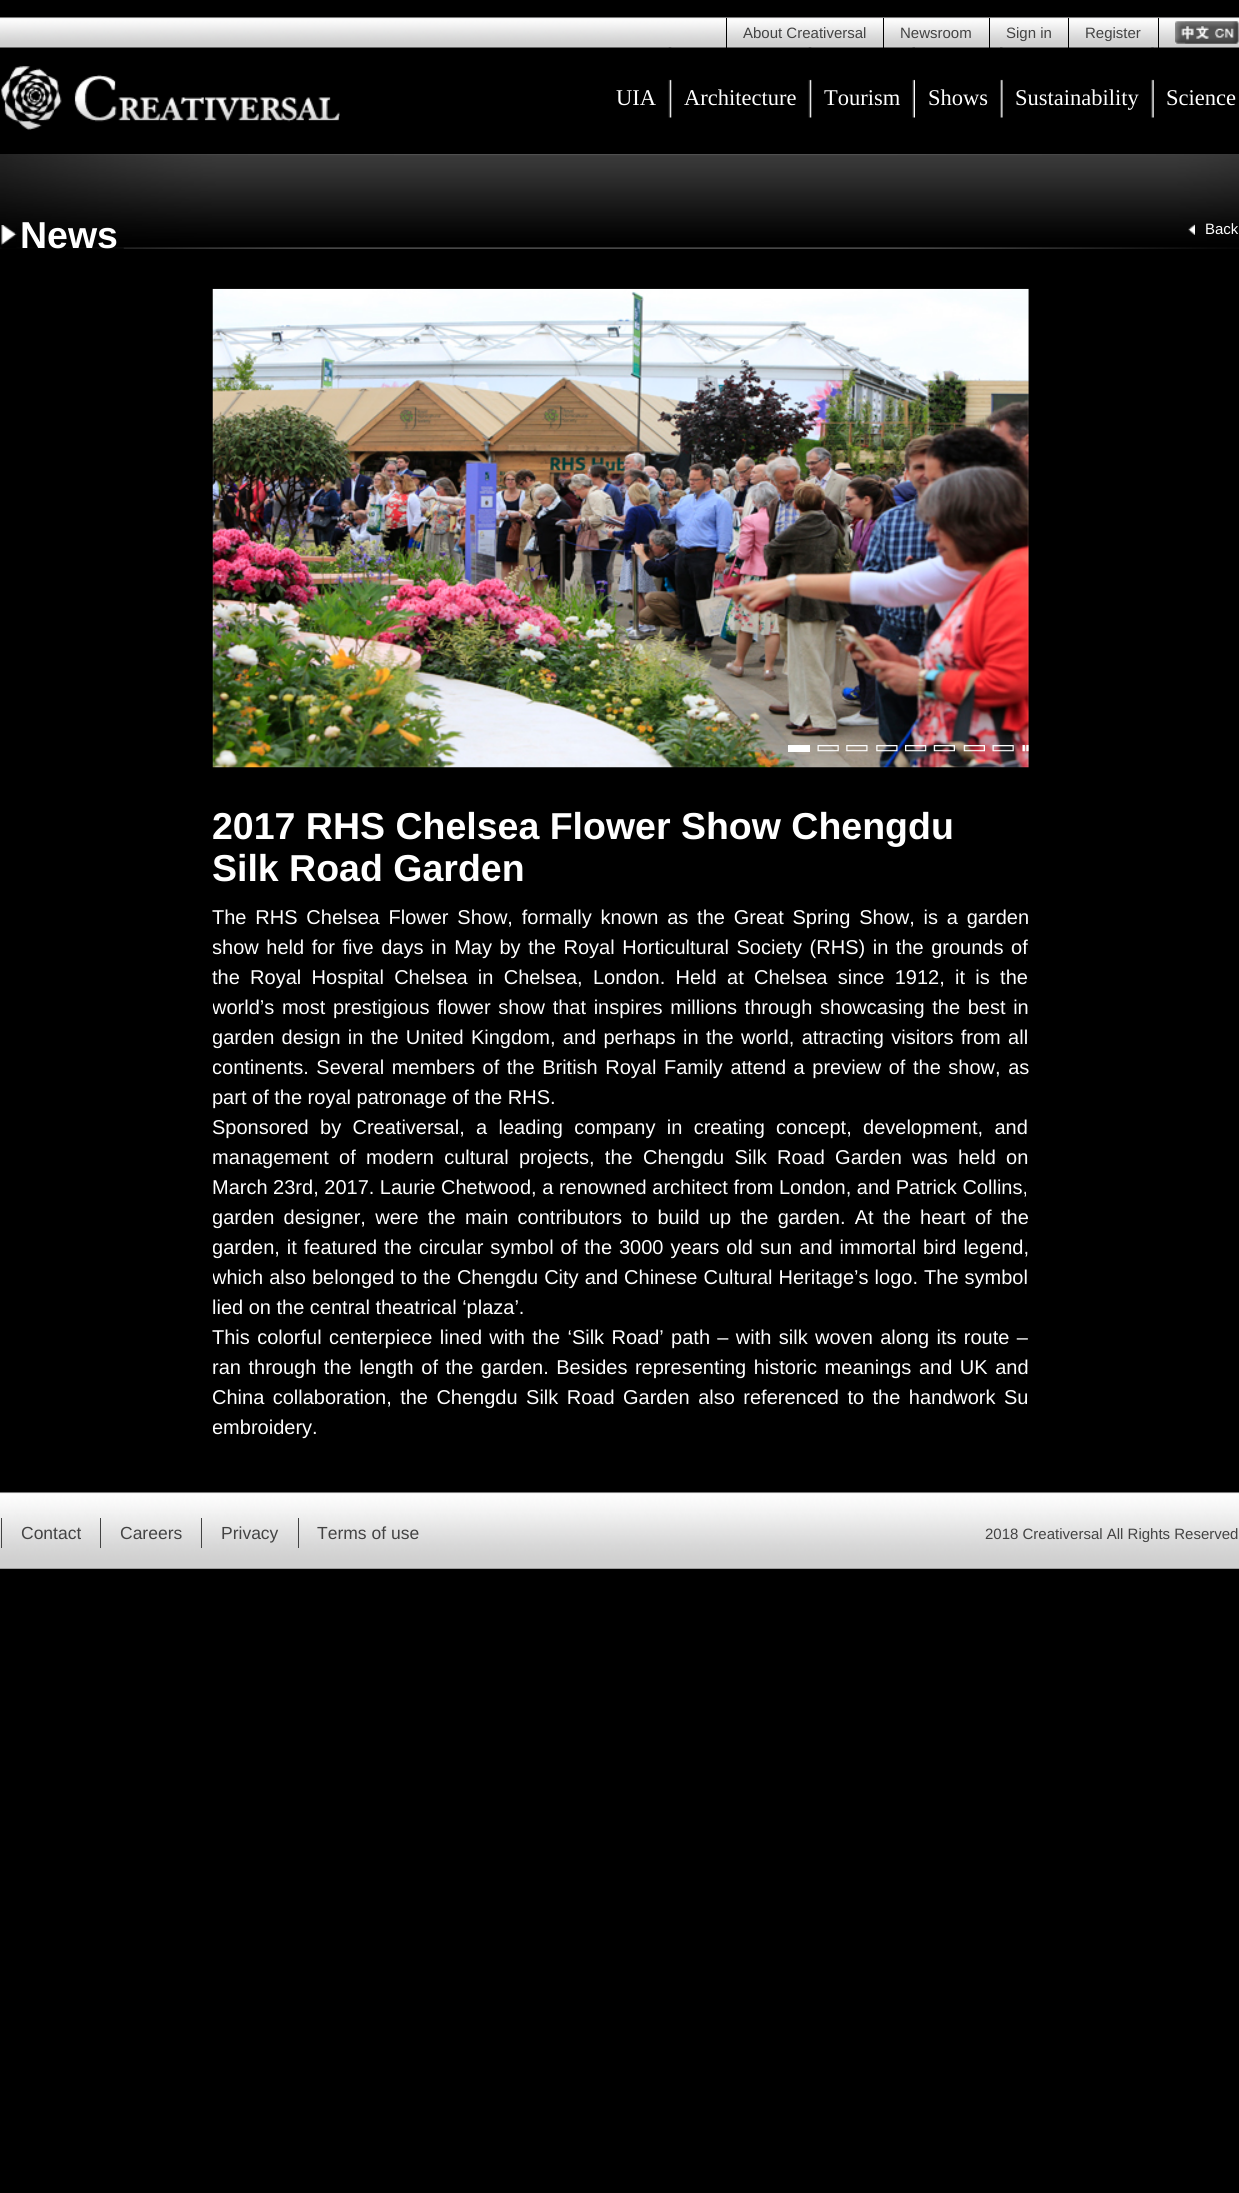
import math
import cairo


def write_spaced(ctx, x, y, s, letter, word):
	ctx.move_to(x, y)
	for ch in s:
		ctx.show_text(ch)
		ctx.rel_move_to(letter + word * (ch == ' '), 0)

def paste(ctx, path, x, y, w, h):
	ctx.save()
	ctx.set_source_surface(cairo.ImageSurface.create_from_png(path), x, y)
	ctx.rectangle(x, y, w, h)
	ctx.fill()
	ctx.restore()

def draw(ctx):
	ctx.set_source_rgb(0, 0, 0)
	ctx.paint()
	paste(ctx, 'media/1.png', 0, 17, 1239, 31)
	ctx.set_source_rgb(0, 0, 0)
	ctx.rectangle(726, 18, 1, 30)
	ctx.fill()
	ctx.select_font_face('Liberation Sans')
	ctx.set_font_size(15)
	ctx.set_source_rgb(0.263, 0.263, 0.263)
	ctx.move_to(743, 38)
	ctx.show_text('About Creativersal')
	ctx.set_source_rgb(0, 0, 0)
	ctx.rectangle(883, 18, 1, 30)
	ctx.fill()
	ctx.set_source_rgb(0.263, 0.263, 0.263)
	ctx.move_to(900, 38)
	ctx.show_text('Newsroom')
	ctx.set_source_rgb(0, 0, 0)
	ctx.rectangle(989, 18, 1, 30)
	ctx.fill()
	ctx.set_source_rgb(0.263, 0.263, 0.263)
	ctx.move_to(1006, 38)
	ctx.show_text('Sign in')
	ctx.set_source_rgb(0, 0, 0)
	ctx.rectangle(1068, 18, 1, 30)
	ctx.fill()
	ctx.set_source_rgb(0.263, 0.263, 0.263)
	ctx.move_to(1085, 38)
	ctx.show_text('Register')
	ctx.set_source_rgb(0, 0, 0)
	ctx.rectangle(1158, 18, 1, 30)
	ctx.fill()
	paste(ctx, 'media/2.png', 1175, 21, 64, 23)
	paste(ctx, 'media/3.png', 1, 66, 339, 64)
	paste(ctx, 'media/4.png', 668, 47, 4, 71)
	ctx.select_font_face('Liberation Serif')
	ctx.set_font_size(22.5)
	ctx.set_source_rgb(1, 1, 1)
	ctx.move_to(616, 105)
	ctx.show_text('UIA')
	paste(ctx, 'media/4.png', 808, 47, 4, 71)
	ctx.move_to(684, 105)
	ctx.show_text('Architecture')
	paste(ctx, 'media/5.png', 912, 47, 3, 71)
	ctx.move_to(824, 105)
	ctx.show_text('Tourism')
	paste(ctx, 'media/6.png', 1000, 47, 3, 71)
	ctx.move_to(928, 105)
	ctx.show_text('Shows')
	paste(ctx, 'media/7.png', 1151, 47, 3, 71)
	ctx.move_to(1015, 105)
	ctx.show_text('Sustainability')
	ctx.move_to(1166, 105)
	ctx.show_text('Science')
	paste(ctx, 'media/8.png', 0, 154, 1239, 95)
	paste(ctx, 'media/9.png', 1, 225, 123, 24)
	ctx.select_font_face('Liberation Sans', cairo.FONT_SLANT_NORMAL, cairo.FONT_WEIGHT_BOLD)
	ctx.set_font_size(37.5)
	ctx.move_to(20, 248)
	ctx.show_text('News')
	paste(ctx, 'media/10.png', 1188, 224, 7, 11)
	ctx.select_font_face('Liberation Sans')
	ctx.set_font_size(15)
	ctx.move_to(1205, 234)
	ctx.show_text('Back')
	paste(ctx, 'media/11.png', 212, 288, 817, 480)
	ctx.rectangle(788, 745, 22, 7)
	ctx.fill()
	paste(ctx, 'media/12.png', 817, 745, 22, 7)
	paste(ctx, 'media/13.png', 846, 745, 22, 7)
	paste(ctx, 'media/14.png', 876, 745, 22, 7)
	paste(ctx, 'media/15.png', 905, 745, 22, 7)
	paste(ctx, 'media/16.png', 933, 745, 22, 7)
	paste(ctx, 'media/17.png', 963, 745, 22, 7)
	paste(ctx, 'media/18.png', 992, 745, 22, 7)
	paste(ctx, 'media/19.png', 1022, 745, 7, 7)
	ctx.select_font_face('Liberation Sans', cairo.FONT_SLANT_NORMAL, cairo.FONT_WEIGHT_BOLD)
	ctx.set_font_size(37.5)
	ctx.move_to(212, 839)
	ctx.show_text('2017 RHS Chelsea Flower Show Chengdu')
	ctx.move_to(212, 881)
	ctx.show_text('Silk Road Garden')
	ctx.select_font_face('Liberation Sans')
	ctx.set_font_size(20)
	write_spaced(ctx, 212, 924, 'The RHS Chelsea Flower Show, formally known as the Great Spring Show, is a garden', 0, 3.25)
	ctx.save()
	ctx.rectangle(213, 264, 816, 1179)
	ctx.clip()
	write_spaced(ctx, 212, 954, 'show held for five days in May by the Royal Horticultural Society (RHS) in the grounds of', 0, 2)
	ctx.restore()
	write_spaced(ctx, 212, 984, 'the Royal Hospital Chelsea in Chelsea, London. Held at Chelsea since 1912, it is the', 0, 4.75)
	ctx.save()
	ctx.rectangle(213, 264, 816, 1179)
	ctx.clip()
	write_spaced(ctx, 212, 1014, 'world’s most prestigious flower show that inspires millions through showcasing the best in', 0, 2.1)
	write_spaced(ctx, 212, 1044, 'garden design in the United Kingdom, and perhaps in the world, attracting visitors from all', 0, 1.75)
	write_spaced(ctx, 212, 1074, 'continents. Several members of the British Royal Family attend a preview of the show, as', 0, 2)
	ctx.restore()
	ctx.move_to(212, 1104)
	ctx.show_text('part of the royal patronage of the RHS.')
	write_spaced(ctx, 212, 1134, 'Sponsored by Creativersal, a leading company in creating concept, development, and', 0, 5.75)
	write_spaced(ctx, 212, 1164, 'management of modern cultural projects, the Chengdu Silk Road Garden was held on', 0, 4.75)
	ctx.move_to(212, 1194)
	ctx.show_text('March 23rd, 2017. Laurie Chetwood, a renowned architect from London, and Patrick Collins,')
	ctx.save()
	ctx.rectangle(213, 264, 816, 1179)
	ctx.clip()
	write_spaced(ctx, 212, 1224, 'garden designer, were the main contributors to build up the garden. At the heart of the', 0, 3.75)
	write_spaced(ctx, 212, 1254, 'garden, it featured the circular symbol of the 3000 years old sun and immortal bird legend,', 0, 1.4)
	write_spaced(ctx, 212, 1284, 'which also belonged to the Chengdu City and Chinese Cultural Heritage’s logo. The symbol', 0, 0.5)
	ctx.restore()
	ctx.move_to(212, 1314)
	ctx.show_text('lied on the central theatrical ‘plaza’.')
	write_spaced(ctx, 212, 1344, 'This colorful centerpiece lined with the ‘Silk Road’ path – with silk woven along its route –', 0, 1.8)
	write_spaced(ctx, 212, 1374, 'ran through the length of the garden. Besides representing historic meanings and UK and', 0, 2)
	write_spaced(ctx, 212, 1404, 'China collaboration, the Chengdu Silk Road Garden also referenced to the handwork Su', 0, 2.9)
	ctx.save()
	ctx.rectangle(213, 264, 816, 1179)
	ctx.clip()
	ctx.move_to(212, 1434)
	ctx.show_text('embroidery.')
	ctx.restore()
	paste(ctx, 'media/20.png', 0, 1492, 1239, 77)
	ctx.set_source_rgb(0.263, 0.263, 0.263)
	ctx.rectangle(1, 1518, 1, 30)
	ctx.fill()
	ctx.set_font_size(17.5)
	ctx.move_to(21, 1539)
	ctx.show_text('Contact')
	ctx.rectangle(100, 1518, 1, 30)
	ctx.fill()
	ctx.move_to(120, 1539)
	ctx.show_text('Careers')
	ctx.rectangle(201, 1518, 1, 30)
	ctx.fill()
	ctx.move_to(221, 1539)
	ctx.show_text('Privacy')
	ctx.rectangle(298, 1518, 1, 30)
	ctx.fill()
	ctx.move_to(317, 1539)
	ctx.show_text('Terms of use')
	ctx.set_font_size(15)
	ctx.move_to(985, 1539)
	ctx.show_text('2018 Creativersal All Rights Reserved')


surface = cairo.ImageSurface(cairo.FORMAT_RGB24, 1239, 2193)
ctx = cairo.Context(surface)
options = cairo.FontOptions()
options.set_hint_metrics(cairo.HINT_METRICS_OFF)
options.set_hint_style(cairo.HINT_STYLE_NONE)
ctx.set_font_options(options)
ctx.set_miter_limit(4)
draw(ctx)
surface.write_to_png('image.png')
